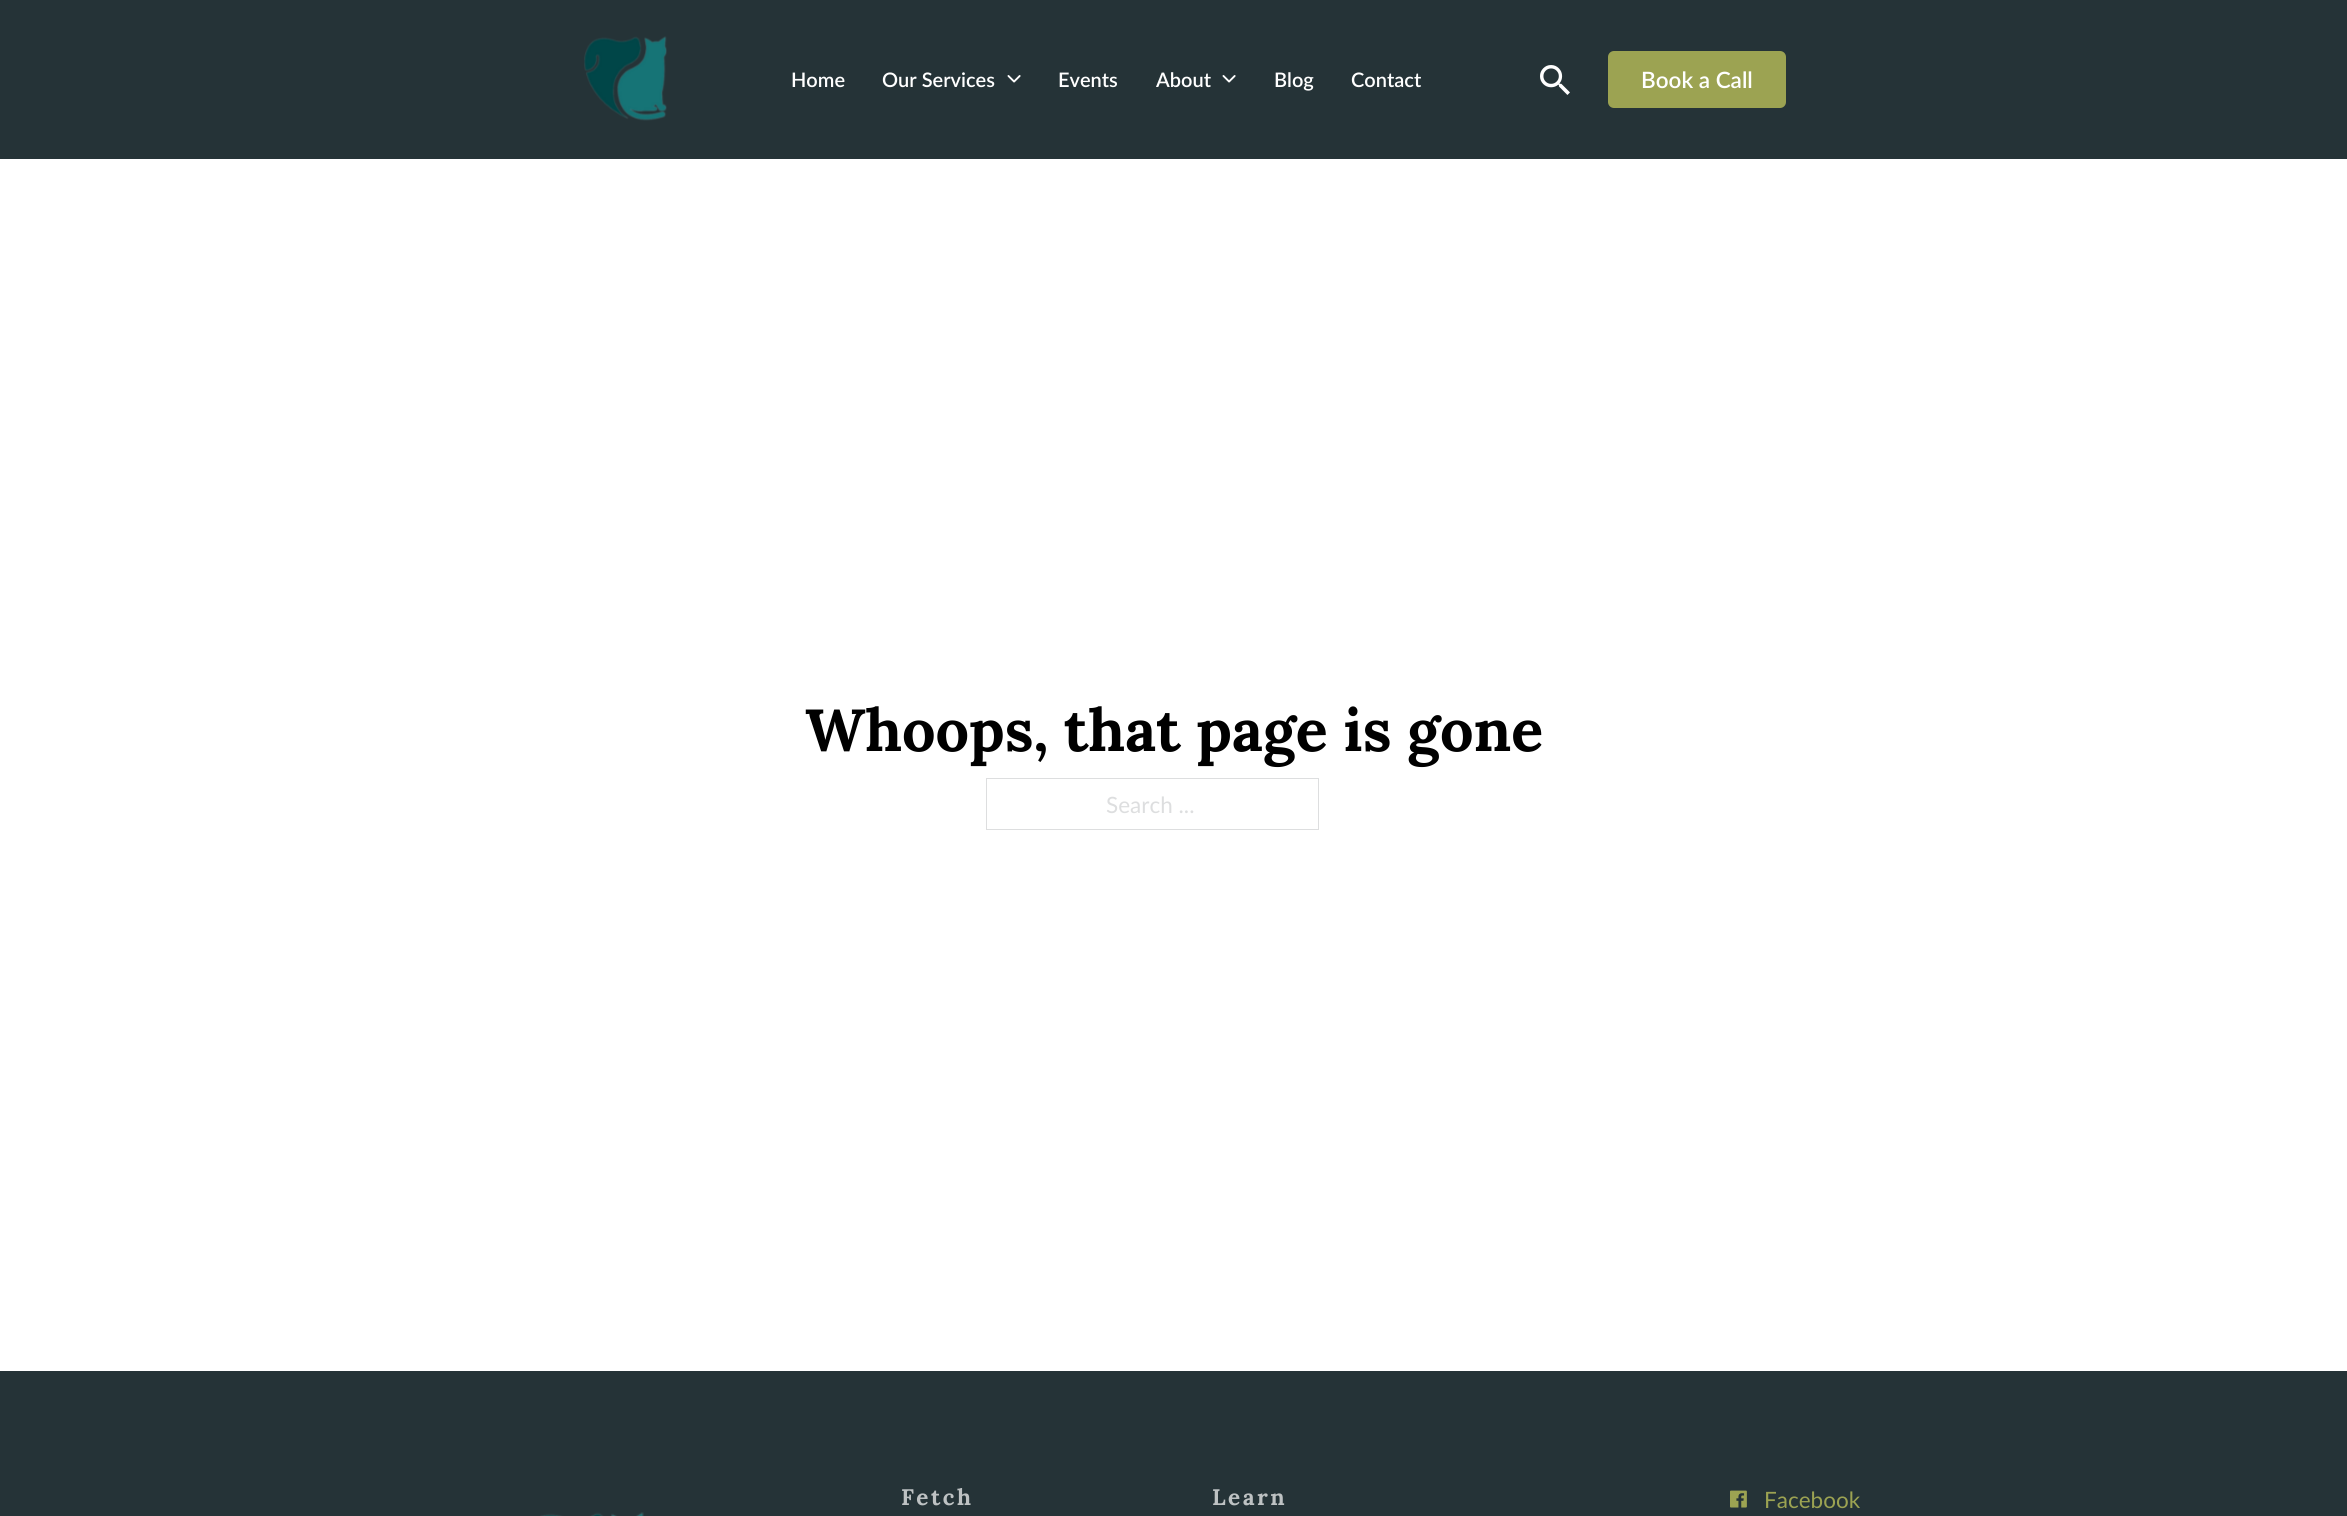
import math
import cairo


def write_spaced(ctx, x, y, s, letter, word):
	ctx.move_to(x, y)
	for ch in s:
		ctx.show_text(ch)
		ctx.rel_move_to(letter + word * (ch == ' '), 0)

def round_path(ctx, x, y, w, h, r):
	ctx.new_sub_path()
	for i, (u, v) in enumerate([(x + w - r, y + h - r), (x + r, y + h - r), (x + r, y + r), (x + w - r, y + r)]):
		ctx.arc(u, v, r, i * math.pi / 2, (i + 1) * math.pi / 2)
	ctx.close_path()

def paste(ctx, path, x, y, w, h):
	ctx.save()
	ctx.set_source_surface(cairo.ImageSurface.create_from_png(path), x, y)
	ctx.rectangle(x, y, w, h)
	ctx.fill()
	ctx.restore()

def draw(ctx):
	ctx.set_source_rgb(1, 1, 1)
	ctx.paint()
	ctx.set_source_rgb(0.145, 0.2, 0.216)
	ctx.rectangle(0, 0, 2347, 159)
	ctx.fill()
	paste(ctx, 'media/1.png', 584, 36, 83, 85)
	ctx.select_font_face('Lato SemiBold')
	ctx.set_font_size(20)
	ctx.set_source_rgb(1, 1, 1)
	ctx.move_to(791, 87)
	ctx.show_text('Home')
	ctx.move_to(882, 87)
	ctx.show_text('Our Services')
	paste(ctx, 'media/2.png', 1007, 75, 14, 8)
	ctx.move_to(1058, 87)
	ctx.show_text('Events')
	ctx.move_to(1156, 87)
	ctx.show_text('About')
	paste(ctx, 'media/2.png', 1222, 75, 14, 8)
	ctx.move_to(1274, 87)
	ctx.show_text('Blog')
	ctx.move_to(1351, 87)
	ctx.show_text('Contact')
	paste(ctx, 'media/3.png', 1540, 65, 30, 30)
	ctx.set_source_rgb(0.612, 0.639, 0.322)
	round_path(ctx, 1608, 51, 178, 57, 6)
	ctx.fill()
	ctx.set_font_size(22.5)
	ctx.set_source_rgb(1, 1, 1)
	ctx.move_to(1641, 88)
	ctx.show_text('Book a Call')
	ctx.select_font_face('Lora', cairo.FONT_SLANT_NORMAL, cairo.FONT_WEIGHT_BOLD)
	ctx.set_font_size(59.25)
	ctx.set_source_rgb(0, 0, 0)
	ctx.move_to(805, 751)
	ctx.show_text('Whoops, that page is gone')
	ctx.rectangle(986.5, 778.5, 332, 51)
	ctx.set_source_rgb(0.867, 0.871, 0.875)
	ctx.set_line_width(1)
	ctx.stroke()
	ctx.select_font_face('Lato')
	ctx.set_font_size(22.5)
	ctx.move_to(1106, 813)
	ctx.show_text('Search ...')
	ctx.set_source_rgb(0.145, 0.2, 0.216)
	ctx.rectangle(0, 1371, 2347, 145)
	ctx.fill()
	ctx.select_font_face('Lora', cairo.FONT_SLANT_NORMAL, cairo.FONT_WEIGHT_BOLD)
	ctx.set_source_rgb(0.745, 0.761, 0.765)
	write_spaced(ctx, 901, 1505, 'Fetch', 2.5, 0)
	write_spaced(ctx, 1212, 1505, 'Learn', 2.5, 0)
	paste(ctx, 'media/4.png', 1730, 1490, 17, 18)
	ctx.select_font_face('Lato')
	ctx.set_source_rgb(0.612, 0.639, 0.322)
	ctx.move_to(1764, 1508)
	ctx.show_text('Facebook')
	paste(ctx, 'media/5.png', 540, 1512, 104, 4)


surface = cairo.ImageSurface(cairo.FORMAT_RGB24, 2347, 1516)
ctx = cairo.Context(surface)
options = cairo.FontOptions()
options.set_hint_metrics(cairo.HINT_METRICS_OFF)
options.set_hint_style(cairo.HINT_STYLE_NONE)
ctx.set_font_options(options)
ctx.set_miter_limit(4)
draw(ctx)
surface.write_to_png('image.png')
